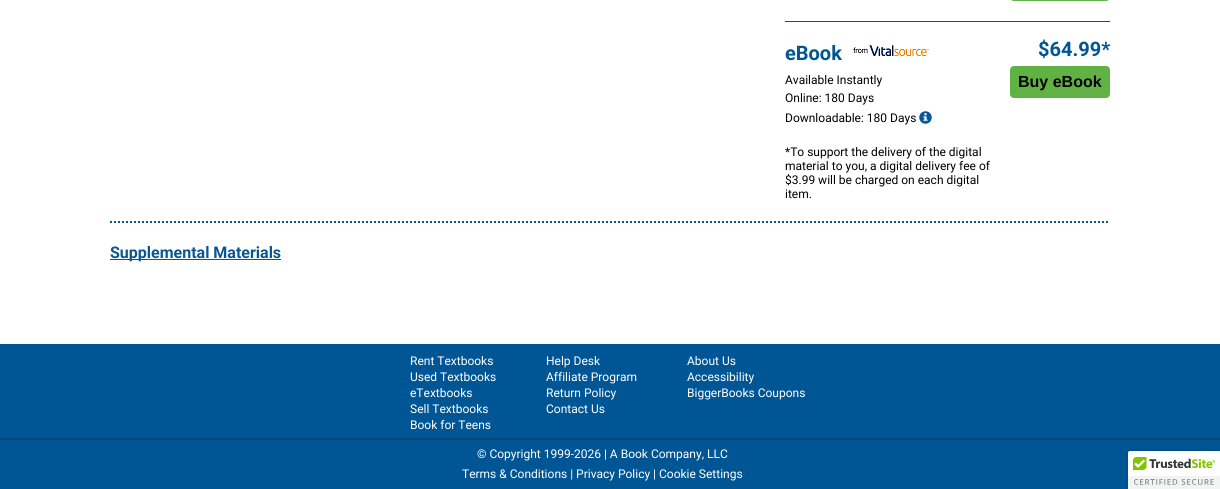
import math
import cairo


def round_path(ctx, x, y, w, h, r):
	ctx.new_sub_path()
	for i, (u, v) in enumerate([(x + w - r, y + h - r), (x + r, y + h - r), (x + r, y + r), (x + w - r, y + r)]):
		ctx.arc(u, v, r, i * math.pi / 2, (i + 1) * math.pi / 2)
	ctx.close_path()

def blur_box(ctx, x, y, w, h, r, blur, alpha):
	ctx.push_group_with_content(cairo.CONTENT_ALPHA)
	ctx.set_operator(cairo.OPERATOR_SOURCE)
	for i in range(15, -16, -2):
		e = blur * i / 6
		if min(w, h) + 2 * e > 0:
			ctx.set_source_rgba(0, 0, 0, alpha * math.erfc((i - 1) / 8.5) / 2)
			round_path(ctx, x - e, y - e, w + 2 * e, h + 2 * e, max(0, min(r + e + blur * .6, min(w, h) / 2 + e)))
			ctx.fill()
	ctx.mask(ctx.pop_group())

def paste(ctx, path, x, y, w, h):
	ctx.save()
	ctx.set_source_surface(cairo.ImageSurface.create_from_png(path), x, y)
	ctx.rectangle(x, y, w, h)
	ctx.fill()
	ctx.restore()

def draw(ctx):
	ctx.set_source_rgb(1, 1, 1)
	ctx.paint()
	ctx.set_source_rgb(0.376, 0.698, 0.271)
	round_path(ctx, 1010, -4, 100, 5, 4)
	ctx.fill()
	ctx.set_source_rgb(0, 0.337, 0.58)
	ctx.rectangle(785, 21, 325, 1)
	ctx.fill()
	ctx.select_font_face('Roboto', cairo.FONT_SLANT_NORMAL, cairo.FONT_WEIGHT_BOLD)
	ctx.set_font_size(20)
	ctx.move_to(785, 60)
	ctx.show_text('eBook')
	paste(ctx, 'media/1.png', 853, 45, 76, 11)
	ctx.select_font_face('Roboto')
	ctx.set_font_size(12)
	ctx.set_source_rgb(0, 0, 0)
	for x, y, s in [
		(785, 84, 'Available Instantly'),
		(785, 102, 'Online: 180 Days'),
		(785, 122, 'Downloadable: 180 Days'),
	]:
		ctx.move_to(x, y)
		ctx.show_text(s)
	paste(ctx, 'media/2.png', 919, 111, 13, 13)
	for x, y, s in [
		(785, 156, '*To support the delivery of the digital'),
		(785, 170, 'material to you, a digital delivery fee of'),
		(785, 184, '$3.99 will be charged on each digital'),
		(785, 198, 'item.'),
	]:
		ctx.move_to(x, y)
		ctx.show_text(s)
	ctx.select_font_face('Roboto', cairo.FONT_SLANT_NORMAL, cairo.FONT_WEIGHT_BOLD)
	ctx.set_font_size(20)
	ctx.set_source_rgb(0, 0.337, 0.58)
	ctx.move_to(1038, 56)
	ctx.show_text('$64.99*')
	ctx.set_source_rgb(0.376, 0.698, 0.271)
	round_path(ctx, 1010, 66, 100, 32, 4)
	ctx.fill()
	ctx.select_font_face('Liberation Sans', cairo.FONT_SLANT_NORMAL, cairo.FONT_WEIGHT_BOLD)
	ctx.set_font_size(16)
	ctx.set_source_rgb(0, 0, 0)
	ctx.move_to(1018, 87)
	ctx.show_text('Buy eBook')
	ctx.new_path()
	ctx.move_to(110, 222)
	ctx.line_to(1110, 222)
	ctx.set_source_rgb(0.031, 0.341, 0.588)
	ctx.set_dash([2, 2])
	ctx.stroke()
	ctx.set_source_rgb(0.027, 0.341, 0.588)
	ctx.rectangle(110, 259, 171, 1)
	ctx.fill()
	ctx.select_font_face('Roboto', cairo.FONT_SLANT_NORMAL, cairo.FONT_WEIGHT_BOLD)
	ctx.move_to(110, 258)
	ctx.show_text('Supplemental Materials')
	ctx.set_source_rgb(0, 0.337, 0.58)
	ctx.rectangle(0, 344, 1220, 145)
	ctx.fill()
	ctx.select_font_face('Roboto')
	ctx.set_font_size(12)
	ctx.set_source_rgb(1, 1, 1)
	for x, y, s in [
		(410, 365, 'Rent Textbooks'),
		(410, 381, 'Used Textbooks'),
		(410, 397, 'eTextbooks'),
		(410, 413, 'Sell Textbooks'),
		(410, 429, 'Book for Teens'),
		(546, 365, 'Help Desk'),
		(546, 381, 'Affiliate Program'),
		(546, 397, 'Return Policy'),
		(546, 413, 'Contact Us'),
		(687, 365, 'About Us'),
		(687, 381, 'Accessibility'),
		(687, 397, 'BiggerBooks Coupons'),
		(477, 458, '© Copyright 1999-2026 | A Book Company, LLC'),
		(462, 478, 'Terms & Conditions | Privacy Policy | Cookie Settings'),
	]:
		ctx.move_to(x, y)
		ctx.show_text(s)
	ctx.set_source_rgb(0, 0.278, 0.475)
	ctx.rectangle(0, 438, 1220, 2)
	ctx.fill()
	ctx.set_source_rgb(0, 0, 0)
	blur_box(ctx, 1128, 451, 92, 38, 2, 2.5, 0.2)
	ctx.set_source_rgb(1, 1, 1)
	ctx.new_path()
	ctx.move_to(1130, 451)
	ctx.line_to(1220, 451)
	ctx.line_to(1220, 489)
	ctx.line_to(1128, 489)
	ctx.line_to(1128, 453)
	ctx.curve_to(1128, 452, 1129, 451, 1130, 451)
	ctx.close_path()
	ctx.fill()
	paste(ctx, 'media/3.png', 1128, 451, 92, 38)


surface = cairo.ImageSurface(cairo.FORMAT_RGB24, 1220, 489)
ctx = cairo.Context(surface)
options = cairo.FontOptions()
options.set_hint_metrics(cairo.HINT_METRICS_OFF)
options.set_hint_style(cairo.HINT_STYLE_NONE)
ctx.set_font_options(options)
ctx.set_miter_limit(4)
draw(ctx)
surface.write_to_png('image.png')
